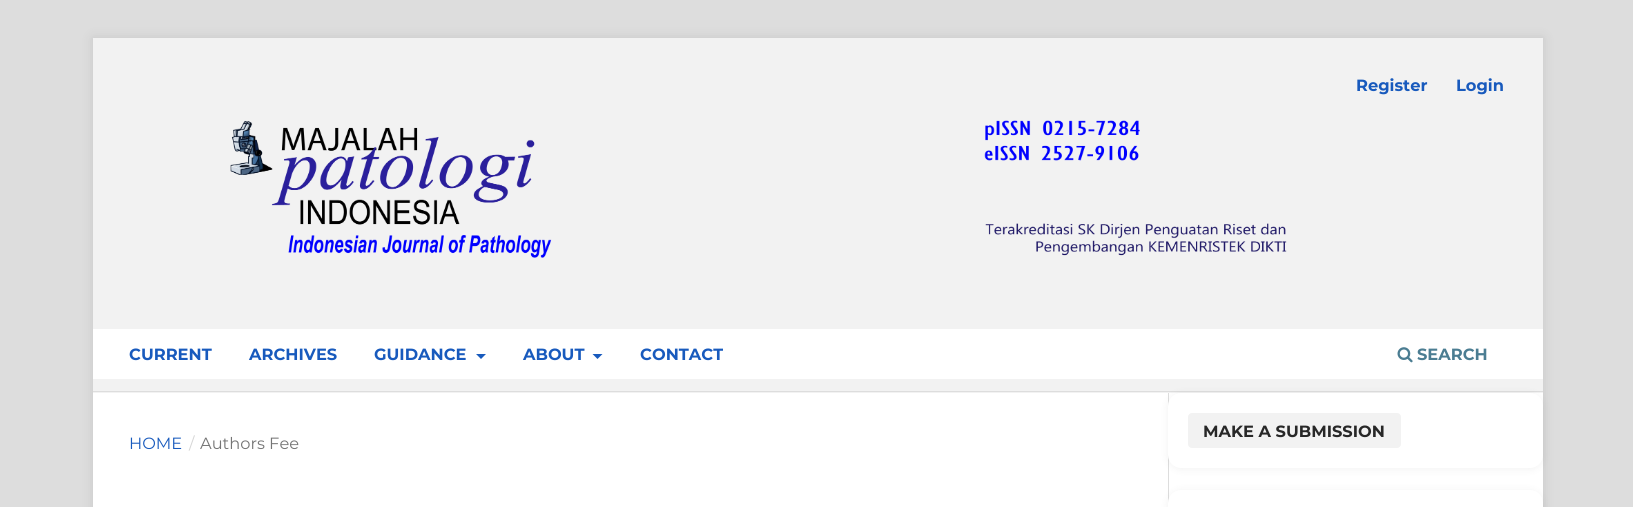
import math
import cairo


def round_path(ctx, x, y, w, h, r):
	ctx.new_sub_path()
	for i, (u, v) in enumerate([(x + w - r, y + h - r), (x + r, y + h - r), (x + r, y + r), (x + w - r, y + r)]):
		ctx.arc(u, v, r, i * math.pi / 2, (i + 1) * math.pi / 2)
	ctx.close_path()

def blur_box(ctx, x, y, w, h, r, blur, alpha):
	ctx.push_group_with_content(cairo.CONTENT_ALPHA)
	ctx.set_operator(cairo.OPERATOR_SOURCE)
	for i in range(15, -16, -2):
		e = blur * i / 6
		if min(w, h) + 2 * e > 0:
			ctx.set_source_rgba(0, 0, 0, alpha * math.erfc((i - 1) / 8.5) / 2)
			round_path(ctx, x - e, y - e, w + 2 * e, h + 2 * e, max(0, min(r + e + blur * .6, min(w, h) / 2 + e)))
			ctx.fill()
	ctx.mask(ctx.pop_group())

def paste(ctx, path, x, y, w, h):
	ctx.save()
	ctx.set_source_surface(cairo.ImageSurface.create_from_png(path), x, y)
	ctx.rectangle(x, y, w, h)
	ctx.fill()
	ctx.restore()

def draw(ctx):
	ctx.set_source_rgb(0.867, 0.867, 0.867)
	ctx.paint()
	ctx.set_source_rgb(0, 0, 0)
	blur_box(ctx, 93, 38, 1450, 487, 0, 6, 0.1)
	ctx.set_source_rgb(1, 1, 1)
	ctx.rectangle(93, 393, 1450, 114)
	ctx.fill()
	ctx.set_source_rgb(0.949, 0.949, 0.949)
	ctx.rectangle(93, 38, 1450, 355)
	ctx.fill()
	ctx.set_source_rgb(0.867, 0.867, 0.867)
	ctx.rectangle(93, 391, 1450, 1)
	ctx.fill()
	ctx.select_font_face('Montserrat', cairo.FONT_SLANT_NORMAL, cairo.FONT_WEIGHT_BOLD)
	ctx.set_font_size(16.25)
	ctx.set_source_rgb(0.094, 0.353, 0.741)
	ctx.move_to(1356, 91)
	ctx.show_text('Register')
	ctx.move_to(1456, 91)
	ctx.show_text('Login')
	ctx.set_source_rgb(1, 1, 1)
	ctx.rectangle(93, 329, 1450, 50)
	ctx.fill()
	ctx.set_source_rgb(0.094, 0.353, 0.741)
	for x, y, s in [
		(129, 360, 'CURRENT'),
		(249, 360, 'ARCHIVES'),
		(374, 360, 'GUIDANCE'),
	]:
		ctx.move_to(x, y)
		ctx.show_text(s)
	ctx.new_path()
	ctx.move_to(476, 354)
	ctx.line_to(486, 354)
	ctx.line_to(481, 359)
	ctx.close_path()
	ctx.fill()
	ctx.move_to(523, 360)
	ctx.show_text('ABOUT')
	ctx.new_path()
	ctx.move_to(592.5, 354)
	ctx.line_to(602.5, 354)
	ctx.line_to(597.5, 359)
	ctx.close_path()
	ctx.fill()
	ctx.move_to(640, 360)
	ctx.show_text('CONTACT')
	paste(ctx, 'media/1.png', 1397, 347, 16, 16)
	ctx.set_source_rgb(0.294, 0.49, 0.573)
	ctx.move_to(1417, 360)
	ctx.show_text('SEARCH')
	paste(ctx, 'media/2.png', 230, 120, 1057, 138)
	ctx.set_source_rgb(0.867, 0.867, 0.867)
	ctx.rectangle(1168, 393, 1, 114)
	ctx.fill()
	ctx.set_source_rgb(0, 0, 0)
	blur_box(ctx, 1168, 394, 375, 75, 13, 4.5, 0.06)
	ctx.set_source_rgb(1, 1, 1)
	round_path(ctx, 1168, 393, 375, 75, 13)
	ctx.fill()
	ctx.set_source_rgb(0.949, 0.949, 0.949)
	round_path(ctx, 1188, 413, 213, 35, 4)
	ctx.fill()
	ctx.set_source_rgb(0.153, 0.153, 0.153)
	ctx.move_to(1203, 437)
	ctx.show_text('MAKE A SUBMISSION')
	ctx.set_source_rgb(0, 0, 0)
	blur_box(ctx, 1168, 491, 375, 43, 13, 4.5, 0.06)
	ctx.set_source_rgb(1, 1, 1)
	round_path(ctx, 1168, 490, 375, 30, 13)
	ctx.fill()
	ctx.select_font_face('Montserrat')
	ctx.set_source_rgb(0.094, 0.353, 0.741)
	ctx.move_to(129, 449)
	ctx.show_text('HOME')
	ctx.set_source_rgb(0.839, 0.839, 0.839)
	ctx.move_to(189, 449)
	ctx.show_text('/')
	ctx.set_source_rgb(0.459, 0.459, 0.459)
	ctx.move_to(200, 449)
	ctx.show_text('Authors Fee')


surface = cairo.ImageSurface(cairo.FORMAT_RGB24, 1633, 507)
ctx = cairo.Context(surface)
options = cairo.FontOptions()
options.set_hint_metrics(cairo.HINT_METRICS_OFF)
options.set_hint_style(cairo.HINT_STYLE_NONE)
ctx.set_font_options(options)
ctx.set_miter_limit(4)
draw(ctx)
surface.write_to_png('image.png')
